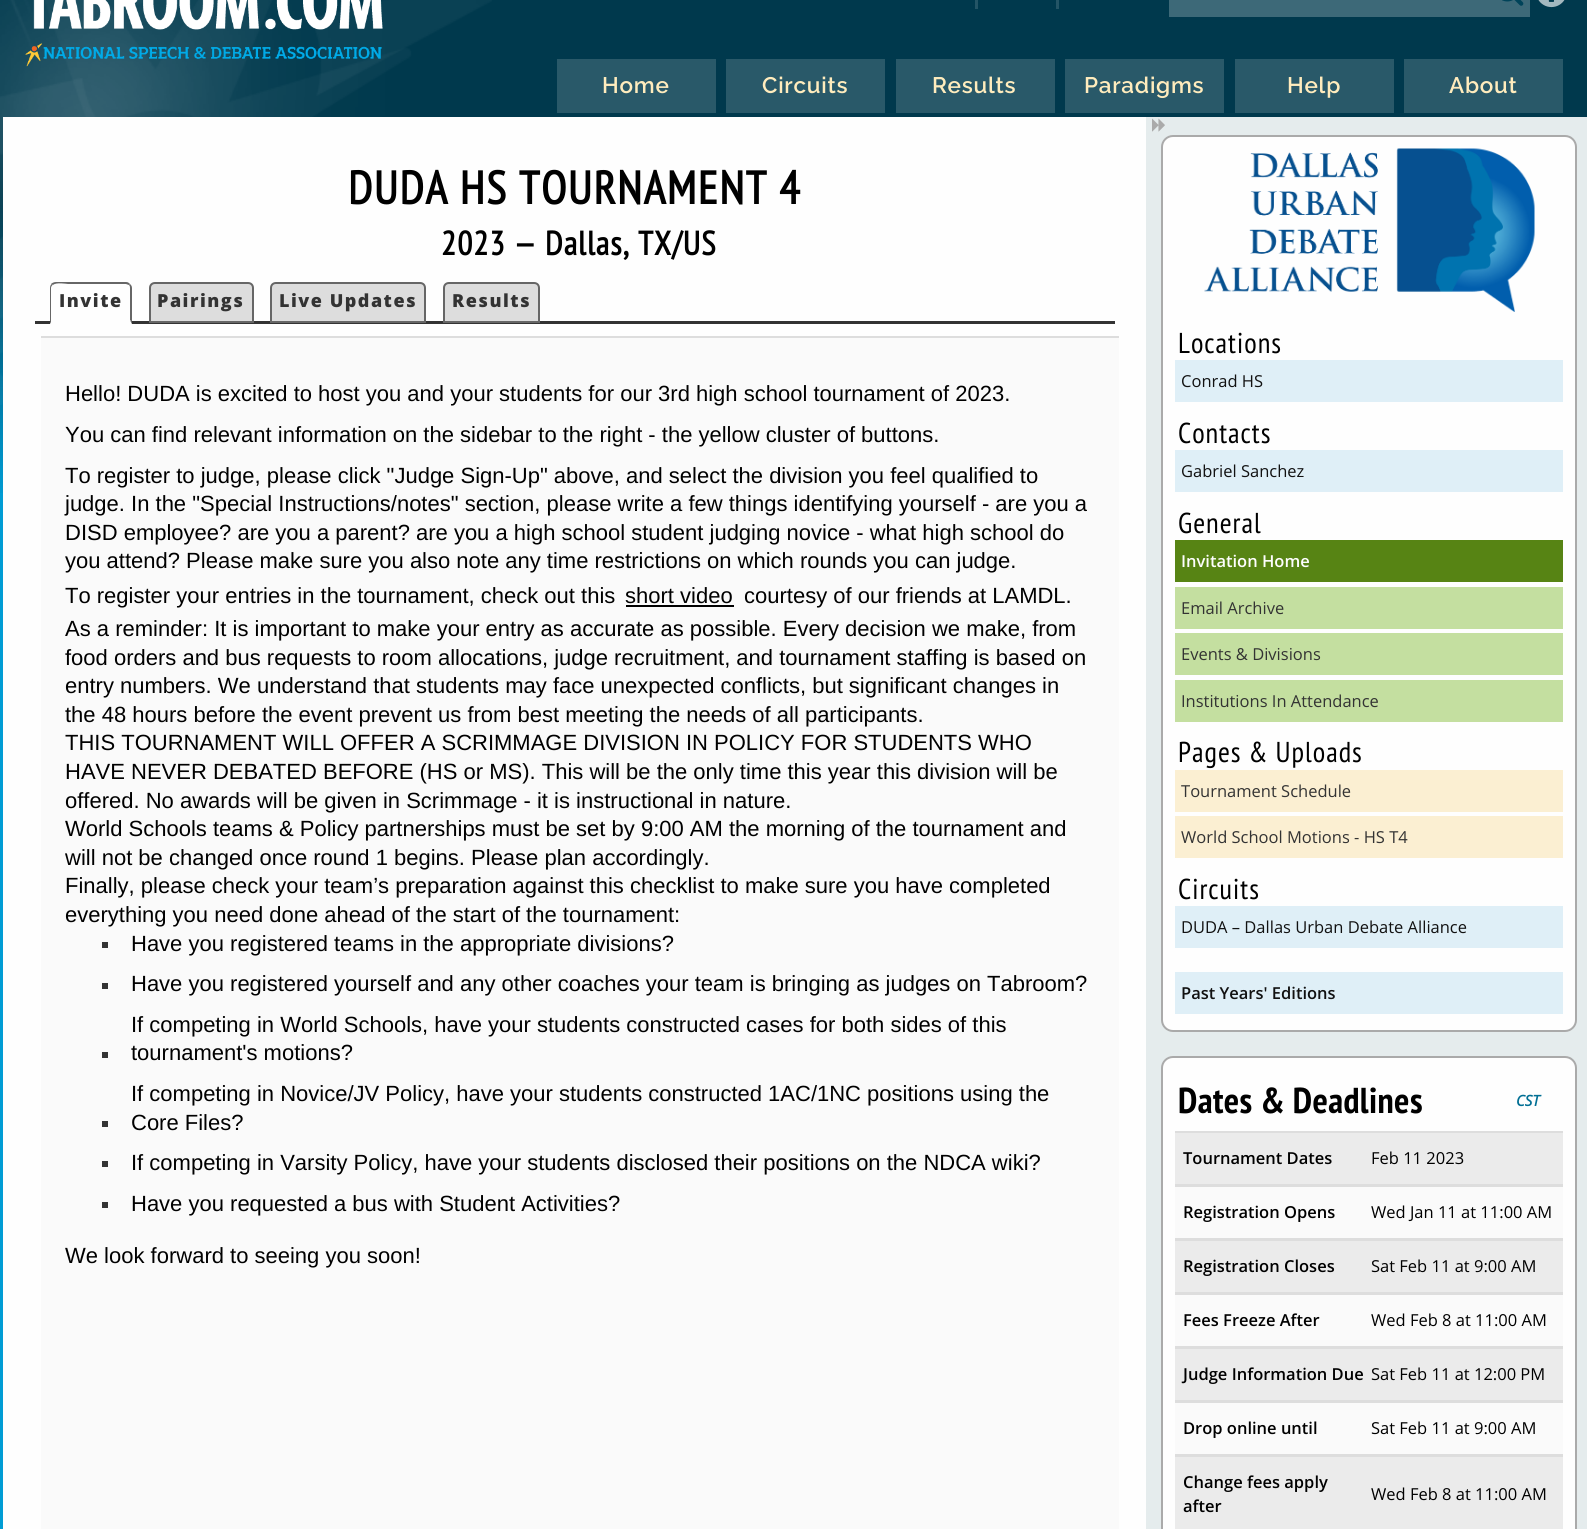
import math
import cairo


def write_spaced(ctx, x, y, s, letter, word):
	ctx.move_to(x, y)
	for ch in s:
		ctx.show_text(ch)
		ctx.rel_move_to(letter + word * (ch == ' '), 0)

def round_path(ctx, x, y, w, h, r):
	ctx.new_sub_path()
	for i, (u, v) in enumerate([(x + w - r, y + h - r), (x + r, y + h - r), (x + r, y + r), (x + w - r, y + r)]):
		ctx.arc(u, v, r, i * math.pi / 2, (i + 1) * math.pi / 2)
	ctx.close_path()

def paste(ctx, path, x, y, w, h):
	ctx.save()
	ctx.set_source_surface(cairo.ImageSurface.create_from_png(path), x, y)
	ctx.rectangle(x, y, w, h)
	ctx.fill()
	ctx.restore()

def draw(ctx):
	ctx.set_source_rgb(0, 0.612, 0.831)
	ctx.paint()
	paste(ctx, 'media/1.png', 0, 0, 1587, 493)
	paste(ctx, 'media/2.png', 0, 0, 492, 405)
	paste(ctx, 'media/3.png', 25, 0, 358, 67)
	ctx.set_source_rgb(0.141, 0.333, 0.4)
	ctx.rectangle(975, 0, 3, 9)
	ctx.rectangle(1056, 0, 3, 9)
	ctx.fill()
	ctx.set_source_rgb(0.239, 0.412, 0.471)
	ctx.rectangle(1169, 0, 361, 17)
	ctx.fill()
	paste(ctx, 'media/4.png', 1502, 0, 22, 6)
	paste(ctx, 'media/5.png', 1538, 0, 27, 8)
	ctx.set_source_rgb(0.161, 0.349, 0.412)
	ctx.rectangle(557, 59, 159, 54)
	ctx.fill()
	ctx.select_font_face('Raleway SemiBold')
	ctx.set_font_size(22.5)
	ctx.set_source_rgb(1, 0.925, 0.741)
	write_spaced(ctx, 602, 93, 'Home', 0.75, 0)
	ctx.set_source_rgb(0.161, 0.349, 0.412)
	ctx.rectangle(726, 59, 159, 54)
	ctx.fill()
	ctx.set_source_rgb(1, 0.925, 0.741)
	write_spaced(ctx, 762, 93, 'Circuits', 0.75, 0)
	ctx.set_source_rgb(0.161, 0.349, 0.412)
	ctx.rectangle(896, 59, 159, 54)
	ctx.fill()
	ctx.set_source_rgb(1, 0.925, 0.741)
	write_spaced(ctx, 932, 93, 'Results', 0.75, 0)
	ctx.set_source_rgb(0.161, 0.349, 0.412)
	ctx.rectangle(1065, 59, 159, 54)
	ctx.fill()
	ctx.set_source_rgb(1, 0.925, 0.741)
	write_spaced(ctx, 1084, 93, 'Paradigms', 0.75, 0)
	ctx.set_source_rgb(0.161, 0.349, 0.412)
	ctx.rectangle(1235, 59, 159, 54)
	ctx.fill()
	ctx.set_source_rgb(1, 0.925, 0.741)
	write_spaced(ctx, 1287, 93, 'Help', 0.75, 0)
	ctx.set_source_rgb(0.161, 0.349, 0.412)
	ctx.rectangle(1404, 59, 159, 54)
	ctx.fill()
	ctx.set_source_rgb(1, 0.925, 0.741)
	write_spaced(ctx, 1449, 93, 'About', 0.75, 0)
	ctx.set_source_rgb(0.898, 0.922, 0.929)
	ctx.rectangle(1146, 117, 441, 1412)
	ctx.fill()
	ctx.set_source_rgb(0.996, 0.996, 0.996)
	ctx.rectangle(3, 117, 1143, 1412)
	ctx.fill()
	ctx.select_font_face('PT Sans Narrow', cairo.FONT_SLANT_NORMAL, cairo.FONT_WEIGHT_BOLD)
	ctx.set_font_size(46.25)
	ctx.set_source_rgb(0, 0, 0)
	write_spaced(ctx, 348, 204, 'DUDA HS TOURNAMENT 4', 1.5, 0)
	ctx.set_font_size(33.5)
	write_spaced(ctx, 441, 255, '2023 — Dallas, TX/US', 1.05, 0)
	ctx.set_source_rgb(0.2, 0.2, 0.2)
	ctx.rectangle(35, 321, 1080, 3)
	ctx.fill()
	ctx.set_source_rgb(0.4, 0.4, 0.4)
	ctx.new_path()
	ctx.move_to(56, 282)
	ctx.curve_to(54, 282, 52, 283, 51, 284)
	ctx.line_to(53, 285)
	ctx.curve_to(56, 282, 67, 284, 68, 284)
	ctx.line_to(126, 284)
	ctx.line_to(129, 285)
	ctx.line_to(130, 284)
	ctx.curve_to(129, 283, 128, 282, 126, 282)
	ctx.close_path()
	ctx.fill()
	ctx.new_path()
	ctx.move_to(132, 324)
	ctx.line_to(132, 288)
	ctx.curve_to(132, 286, 131, 285, 130, 284)
	ctx.line_to(129, 285)
	ctx.curve_to(130, 286, 130, 287, 130, 288)
	ctx.line_to(130, 320)
	ctx.close_path()
	ctx.fill()
	ctx.set_source_rgb(0.996, 0.996, 0.996)
	ctx.new_path()
	ctx.move_to(132, 324)
	ctx.line_to(130, 320)
	ctx.line_to(130, 321)
	ctx.line_to(51, 321)
	ctx.line_to(50, 324)
	ctx.close_path()
	ctx.fill()
	ctx.set_source_rgb(0.4, 0.4, 0.4)
	ctx.new_path()
	ctx.move_to(51.5, 284)
	ctx.curve_to(50.5, 285, 50, 286.5, 50, 288)
	ctx.line_to(50, 323)
	ctx.line_to(51, 321)
	ctx.line_to(51, 288)
	ctx.curve_to(51, 287, 51.5, 286, 52.5, 285)
	ctx.close_path()
	ctx.fill()
	ctx.select_font_face('Open Sans ExtraBold')
	ctx.set_font_size(18)
	ctx.set_source_rgb(0.2, 0.2, 0.2)
	write_spaced(ctx, 59, 307, 'Invite', 1.5, 0)
	ctx.set_source_rgb(0.867, 0.867, 0.867)
	ctx.new_path()
	ctx.move_to(155, 283)
	ctx.line_to(248, 283)
	ctx.curve_to(251, 283, 253, 285, 253, 288)
	ctx.line_to(253, 322)
	ctx.line_to(150, 322)
	ctx.line_to(150, 288)
	ctx.curve_to(150, 285, 152, 283, 155, 283)
	ctx.close_path()
	ctx.fill_preserve()
	ctx.set_source_rgb(0.4, 0.4, 0.4)
	ctx.stroke()
	ctx.set_source_rgb(0.2, 0.2, 0.2)
	write_spaced(ctx, 157, 307, 'Pairings', 1.5, 0)
	ctx.set_source_rgb(0.867, 0.867, 0.867)
	ctx.new_path()
	ctx.move_to(276, 283)
	ctx.line_to(420, 283)
	ctx.curve_to(423, 283, 425, 285, 425, 288)
	ctx.line_to(425, 322)
	ctx.line_to(271, 322)
	ctx.line_to(271, 288)
	ctx.curve_to(271, 285, 273, 283, 276, 283)
	ctx.close_path()
	ctx.fill_preserve()
	ctx.set_source_rgb(0.4, 0.4, 0.4)
	ctx.stroke()
	ctx.set_source_rgb(0.2, 0.2, 0.2)
	write_spaced(ctx, 279, 307, 'Live Updates', 1.5, 0)
	ctx.set_source_rgb(0.867, 0.867, 0.867)
	ctx.new_path()
	ctx.move_to(449, 283)
	ctx.line_to(534, 283)
	ctx.curve_to(537, 283, 539, 285, 539, 288)
	ctx.line_to(539, 322)
	ctx.line_to(444, 322)
	ctx.line_to(444, 288)
	ctx.curve_to(444, 285, 446, 283, 449, 283)
	ctx.close_path()
	ctx.fill_preserve()
	ctx.set_source_rgb(0.4, 0.4, 0.4)
	ctx.stroke()
	ctx.set_source_rgb(0.2, 0.2, 0.2)
	write_spaced(ctx, 452, 307, 'Results', 1.5, 0)
	ctx.set_source_rgb(0.98, 0.98, 0.98)
	ctx.rectangle(41, 338, 1078, 1191)
	ctx.fill()
	ctx.set_source_rgb(0.867, 0.867, 0.867)
	ctx.rectangle(41, 336, 1078, 2)
	ctx.fill()
	ctx.select_font_face('Liberation Sans')
	ctx.set_font_size(22)
	ctx.set_source_rgb(0, 0, 0)
	for x, y, s in [
		(65, 401, 'Hello! DUDA is excited to host you and your students for our 3rd high school tournament of 2023.'),
		(65, 442, 'You can find relevant information on the sidebar to the right - the yellow cluster of buttons.'),
		(65, 483, 'To register to judge, please click "Judge Sign-Up" above, and select the division you feel qualified to'),
		(65, 511, 'judge. In the "Special Instructions/notes" section, please write a few things identifying yourself - are you a'),
		(65, 540, 'DISD employee? are you a parent? are you a high school student judging novice - what high school do'),
		(65, 568, 'you attend? Please make sure you also note any time restrictions on which rounds you can judge.'),
		(65, 603, 'To register your entries in the tournament, check out this'),
		(625, 603, 'short video'),
	]:
		ctx.move_to(x, y)
		ctx.show_text(s)
	ctx.rectangle(626, 605, 108, 2)
	ctx.fill()
	for x, y, s in [
		(744, 603, 'courtesy of our friends at LAMDL.'),
		(65, 636, 'As a reminder: It is important to make your entry as accurate as possible. Every decision we make, from'),
		(65, 665, 'food orders and bus requests to room allocations, judge recruitment, and tournament staffing is based on'),
		(65, 693, 'entry numbers. We understand that students may face unexpected conflicts, but significant changes in'),
		(65, 722, 'the 48 hours before the event prevent us from best meeting the needs of all participants.'),
		(65, 750, 'THIS TOURNAMENT WILL OFFER A SCRIMMAGE DIVISION IN POLICY FOR STUDENTS WHO'),
		(65, 779, 'HAVE NEVER DEBATED BEFORE (HS or MS). This will be the only time this year this division will be'),
		(65, 808, 'offered. No awards will be given in Scrimmage - it is instructional in nature.'),
		(65, 836, 'World Schools teams & Policy partnerships must be set by 9:00 AM the morning of the tournament and'),
		(65, 865, 'will not be changed once round 1 begins. Please plan accordingly.'),
		(65, 893, 'Finally, please check your team’s preparation against this checklist to make sure you have completed'),
		(65, 922, 'everything you need done ahead of the start of the tournament:'),
	]:
		ctx.move_to(x, y)
		ctx.show_text(s)
	ctx.set_source_rgb(0.2, 0.2, 0.2)
	ctx.rectangle(102, 942, 6, 6)
	ctx.fill()
	ctx.set_source_rgb(0, 0, 0)
	ctx.move_to(131, 951)
	ctx.show_text('Have you registered teams in the appropriate divisions?')
	ctx.set_source_rgb(0.2, 0.2, 0.2)
	ctx.rectangle(102, 983, 6, 6)
	ctx.fill()
	ctx.set_source_rgb(0, 0, 0)
	ctx.move_to(131, 991)
	ctx.show_text('Have you registered yourself and any other coaches your team is bringing as judges on Tabroom?')
	ctx.set_source_rgb(0.2, 0.2, 0.2)
	ctx.rectangle(102, 1052, 6, 6)
	ctx.fill()
	ctx.set_source_rgb(0, 0, 0)
	ctx.move_to(131, 1032)
	ctx.show_text('If competing in World Schools, have your students constructed cases for both sides of this')
	ctx.move_to(131, 1060)
	ctx.show_text('tournament\'s motions?')
	ctx.set_source_rgb(0.2, 0.2, 0.2)
	ctx.rectangle(102, 1121, 6, 6)
	ctx.fill()
	ctx.set_source_rgb(0, 0, 0)
	ctx.move_to(131, 1101)
	ctx.show_text('If competing in Novice/JV Policy, have your students constructed 1AC/1NC positions using the')
	ctx.move_to(131, 1130)
	ctx.show_text('Core Files?')
	ctx.set_source_rgb(0.2, 0.2, 0.2)
	ctx.rectangle(102, 1161, 6, 6)
	ctx.fill()
	ctx.set_source_rgb(0, 0, 0)
	ctx.move_to(131, 1170)
	ctx.show_text('If competing in Varsity Policy, have your students disclosed their positions on the NDCA wiki?')
	ctx.set_source_rgb(0.2, 0.2, 0.2)
	ctx.rectangle(102, 1202, 6, 6)
	ctx.fill()
	ctx.set_source_rgb(0, 0, 0)
	ctx.move_to(131, 1211)
	ctx.show_text('Have you requested a bus with Student Activities?')
	ctx.move_to(65, 1263)
	ctx.show_text('We look forward to seeing you soon!')
	paste(ctx, 'media/6.png', 1152, 118, 13, 14)
	ctx.set_source_rgb(0.996, 0.996, 0.996)
	round_path(ctx, 1162, 136, 414, 895, 11)
	ctx.fill_preserve()
	ctx.set_source_rgb(0.667, 0.667, 0.667)
	ctx.stroke()
	paste(ctx, 'media/7.png', 1204, 148, 331, 164)
	ctx.select_font_face('PT Sans Narrow')
	ctx.set_font_size(28.75)
	ctx.set_source_rgb(0, 0, 0)
	write_spaced(ctx, 1178, 353, 'Locations', 1, 0)
	ctx.set_source_rgb(0.875, 0.937, 0.965)
	ctx.rectangle(1175, 360, 388, 42)
	ctx.fill()
	ctx.select_font_face('Open Sans')
	ctx.set_font_size(16.5)
	ctx.set_source_rgb(0.067, 0.067, 0.067)
	ctx.move_to(1181, 387)
	ctx.show_text('Conrad HS')
	ctx.select_font_face('PT Sans Narrow')
	ctx.set_font_size(28.75)
	ctx.set_source_rgb(0, 0, 0)
	write_spaced(ctx, 1178, 443, 'Contacts', 1, 0)
	ctx.set_source_rgb(0.875, 0.937, 0.965)
	ctx.rectangle(1175, 450, 388, 42)
	ctx.fill()
	ctx.select_font_face('Open Sans')
	ctx.set_font_size(16.5)
	ctx.set_source_rgb(0.067, 0.067, 0.067)
	ctx.move_to(1181, 477)
	ctx.show_text('Gabriel Sanchez')
	ctx.select_font_face('PT Sans Narrow')
	ctx.set_font_size(28.75)
	ctx.set_source_rgb(0, 0, 0)
	write_spaced(ctx, 1178, 533, 'General', 1, 0)
	ctx.set_source_rgb(0.341, 0.518, 0.082)
	ctx.rectangle(1175, 540, 388, 42)
	ctx.fill()
	ctx.select_font_face('Open Sans SemiBold')
	ctx.set_font_size(16.5)
	ctx.set_source_rgb(0.996, 0.996, 0.996)
	ctx.move_to(1181, 567)
	ctx.show_text('Invitation Home')
	ctx.set_source_rgb(0.769, 0.875, 0.627)
	ctx.rectangle(1175, 587, 388, 42)
	ctx.fill()
	ctx.select_font_face('Open Sans')
	ctx.set_source_rgb(0.2, 0.2, 0.2)
	ctx.move_to(1181, 614)
	ctx.show_text('Email Archive')
	ctx.set_source_rgb(0.769, 0.875, 0.627)
	ctx.rectangle(1175, 633, 388, 42)
	ctx.fill()
	ctx.set_source_rgb(0.2, 0.2, 0.2)
	ctx.move_to(1181, 660)
	ctx.show_text('Events & Divisions')
	ctx.set_source_rgb(0.769, 0.875, 0.627)
	ctx.rectangle(1175, 680, 388, 42)
	ctx.fill()
	ctx.set_source_rgb(0.2, 0.2, 0.2)
	ctx.move_to(1181, 707)
	ctx.show_text('Institutions In Attendance')
	ctx.select_font_face('PT Sans Narrow')
	ctx.set_font_size(28.75)
	ctx.set_source_rgb(0, 0, 0)
	write_spaced(ctx, 1178, 762, 'Pages & Uploads', 1, 0)
	ctx.set_source_rgb(0.984, 0.937, 0.824)
	ctx.rectangle(1175, 770, 388, 42)
	ctx.fill()
	ctx.select_font_face('Open Sans')
	ctx.set_font_size(16.5)
	ctx.set_source_rgb(0.2, 0.2, 0.2)
	ctx.move_to(1181, 797)
	ctx.show_text('Tournament Schedule')
	ctx.set_source_rgb(0.984, 0.937, 0.824)
	ctx.rectangle(1175, 816, 388, 42)
	ctx.fill()
	ctx.set_source_rgb(0.2, 0.2, 0.2)
	ctx.move_to(1181, 843)
	ctx.show_text('World School Motions - HS T4')
	ctx.select_font_face('PT Sans Narrow')
	ctx.set_font_size(28.75)
	ctx.set_source_rgb(0, 0, 0)
	write_spaced(ctx, 1178, 899, 'Circuits', 1, 0)
	ctx.set_source_rgb(0.875, 0.937, 0.965)
	ctx.rectangle(1175, 906, 388, 42)
	ctx.fill()
	ctx.select_font_face('Open Sans')
	ctx.set_font_size(16.5)
	ctx.set_source_rgb(0.067, 0.067, 0.067)
	ctx.move_to(1181, 933)
	ctx.show_text('DUDA – Dallas Urban Debate Alliance')
	ctx.set_source_rgb(0.875, 0.937, 0.965)
	ctx.rectangle(1175, 972, 388, 42)
	ctx.fill()
	ctx.select_font_face('Open Sans SemiBold')
	ctx.set_source_rgb(0.067, 0.067, 0.067)
	ctx.move_to(1181, 999)
	ctx.show_text('Past Years\' Editions')
	ctx.set_source_rgb(0.996, 0.996, 0.996)
	round_path(ctx, 1162, 1057, 414, 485, 11)
	ctx.fill_preserve()
	ctx.set_source_rgb(0.667, 0.667, 0.667)
	ctx.stroke()
	ctx.select_font_face('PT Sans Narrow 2', cairo.FONT_SLANT_NORMAL, cairo.FONT_WEIGHT_BOLD)
	ctx.set_font_size(36)
	ctx.set_source_rgb(0, 0, 0)
	write_spaced(ctx, 1178, 1113, 'Dates & Deadlines', 0.4, 0)
	ctx.select_font_face('Open Sans', cairo.FONT_SLANT_ITALIC, cairo.FONT_WEIGHT_BOLD)
	ctx.set_font_size(15)
	ctx.set_source_rgb(0.004, 0.435, 0.58)
	ctx.move_to(1516, 1106)
	ctx.show_text('CST')
	ctx.set_source_rgb(0.918, 0.918, 0.918)
	ctx.rectangle(1175, 1133, 388, 51)
	ctx.fill()
	ctx.set_source_rgb(0.867, 0.867, 0.867)
	ctx.rectangle(1175, 1131, 388, 2)
	ctx.rectangle(1175, 1184, 388, 3)
	ctx.fill()
	ctx.select_font_face('Open Sans SemiBold')
	ctx.set_font_size(16.5)
	ctx.set_source_rgb(0, 0, 0)
	ctx.move_to(1183, 1164)
	ctx.show_text('Tournament Dates')
	ctx.select_font_face('Open Sans')
	ctx.move_to(1371, 1164)
	ctx.show_text('Feb 11 2023')
	ctx.set_source_rgb(0.98, 0.98, 0.98)
	ctx.rectangle(1175, 1187, 388, 51)
	ctx.fill()
	ctx.set_source_rgb(0.867, 0.867, 0.867)
	ctx.rectangle(1175, 1238, 388, 3)
	ctx.fill()
	ctx.select_font_face('Open Sans SemiBold')
	ctx.set_source_rgb(0, 0, 0)
	ctx.move_to(1183, 1218)
	ctx.show_text('Registration Opens')
	ctx.select_font_face('Open Sans')
	ctx.move_to(1371, 1218)
	ctx.show_text('Wed Jan 11 at 11:00 AM')
	ctx.set_source_rgb(0.918, 0.918, 0.918)
	ctx.rectangle(1175, 1241, 388, 51)
	ctx.fill()
	ctx.set_source_rgb(0.867, 0.867, 0.867)
	ctx.rectangle(1175, 1292, 388, 3)
	ctx.fill()
	ctx.select_font_face('Open Sans SemiBold')
	ctx.set_source_rgb(0, 0, 0)
	ctx.move_to(1183, 1272)
	ctx.show_text('Registration Closes')
	ctx.select_font_face('Open Sans')
	ctx.move_to(1371, 1272)
	ctx.show_text('Sat Feb 11 at 9:00 AM')
	ctx.set_source_rgb(0.98, 0.98, 0.98)
	ctx.rectangle(1175, 1295, 388, 51)
	ctx.fill()
	ctx.set_source_rgb(0.867, 0.867, 0.867)
	ctx.rectangle(1175, 1346, 388, 3)
	ctx.fill()
	ctx.select_font_face('Open Sans SemiBold')
	ctx.set_source_rgb(0, 0, 0)
	ctx.move_to(1183, 1326)
	ctx.show_text('Fees Freeze After')
	ctx.select_font_face('Open Sans')
	ctx.move_to(1371, 1326)
	ctx.show_text('Wed Feb 8 at 11:00 AM')
	ctx.set_source_rgb(0.918, 0.918, 0.918)
	ctx.rectangle(1175, 1349, 388, 51)
	ctx.fill()
	ctx.set_source_rgb(0.867, 0.867, 0.867)
	ctx.rectangle(1175, 1400, 388, 3)
	ctx.fill()
	ctx.select_font_face('Open Sans SemiBold')
	ctx.set_source_rgb(0, 0, 0)
	ctx.move_to(1183, 1380)
	ctx.show_text('Judge Information Due')
	ctx.select_font_face('Open Sans')
	ctx.move_to(1371, 1380)
	ctx.show_text('Sat Feb 11 at 12:00 PM')
	ctx.set_source_rgb(0.98, 0.98, 0.98)
	ctx.rectangle(1175, 1403, 388, 51)
	ctx.fill()
	ctx.set_source_rgb(0.867, 0.867, 0.867)
	ctx.rectangle(1175, 1454, 388, 3)
	ctx.fill()
	ctx.select_font_face('Open Sans SemiBold')
	ctx.set_source_rgb(0, 0, 0)
	ctx.move_to(1183, 1434)
	ctx.show_text('Drop online until')
	ctx.select_font_face('Open Sans')
	ctx.move_to(1371, 1434)
	ctx.show_text('Sat Feb 11 at 9:00 AM')
	ctx.set_source_rgb(0.918, 0.918, 0.918)
	ctx.rectangle(1175, 1457, 388, 72)
	ctx.fill()
	ctx.select_font_face('Open Sans SemiBold')
	ctx.set_source_rgb(0, 0, 0)
	ctx.move_to(1183, 1488)
	ctx.show_text('Change fees apply')
	ctx.move_to(1183, 1512)
	ctx.show_text('after')
	ctx.select_font_face('Open Sans')
	ctx.move_to(1371, 1500)
	ctx.show_text('Wed Feb 8 at 11:00 AM')


surface = cairo.ImageSurface(cairo.FORMAT_RGB24, 1587, 1529)
ctx = cairo.Context(surface)
options = cairo.FontOptions()
options.set_hint_metrics(cairo.HINT_METRICS_OFF)
options.set_hint_style(cairo.HINT_STYLE_NONE)
ctx.set_font_options(options)
ctx.set_miter_limit(4)
draw(ctx)
surface.write_to_png('image.png')
